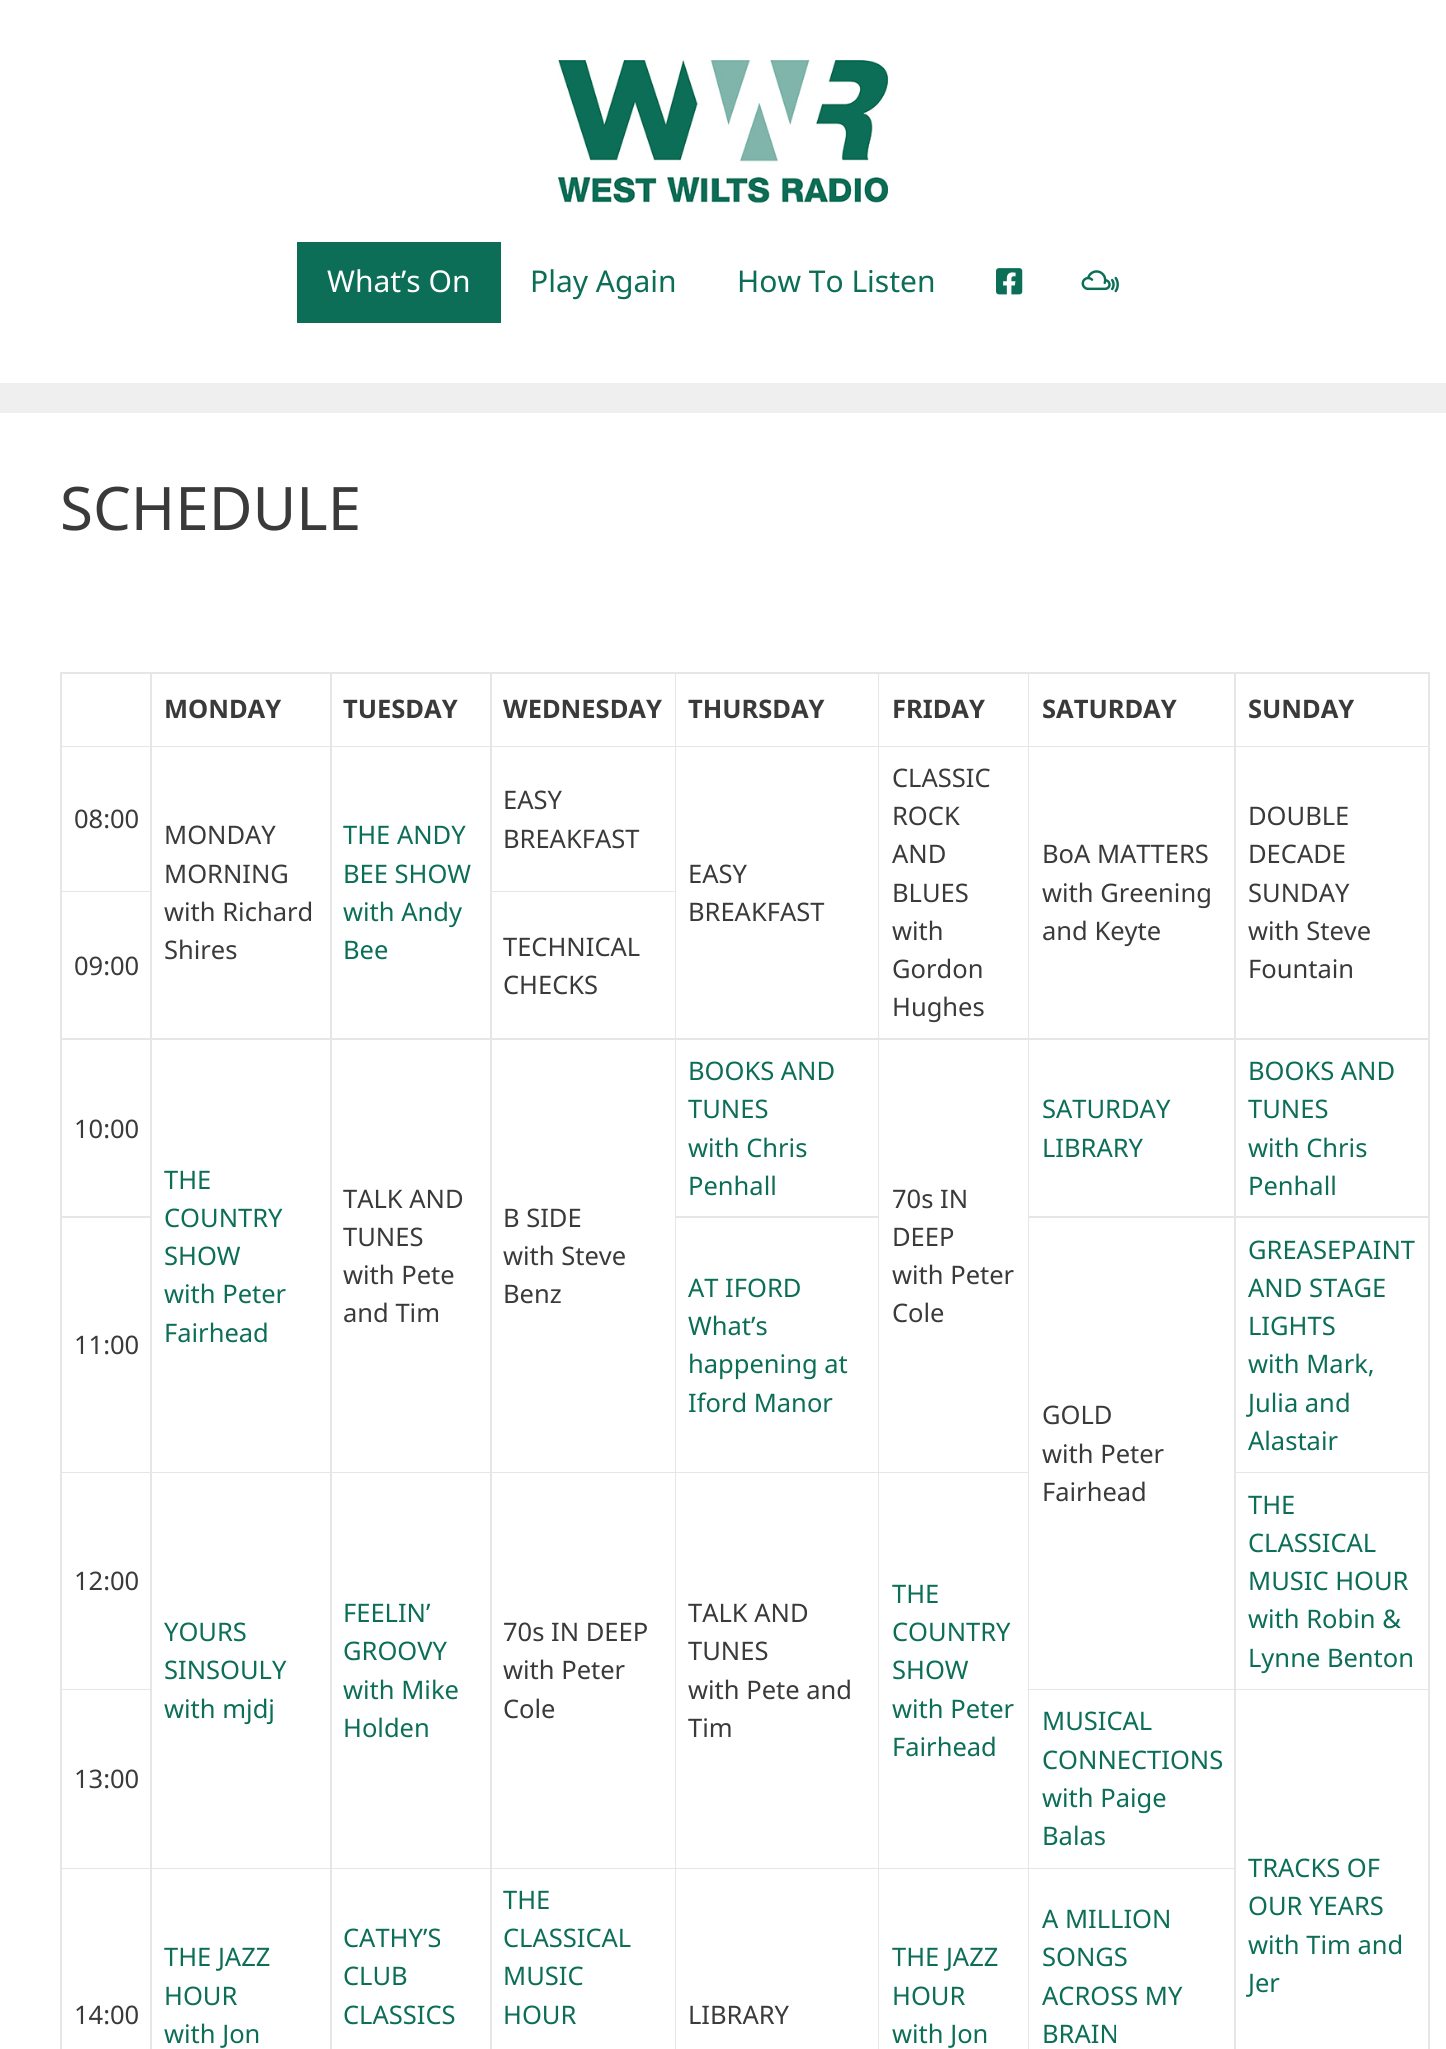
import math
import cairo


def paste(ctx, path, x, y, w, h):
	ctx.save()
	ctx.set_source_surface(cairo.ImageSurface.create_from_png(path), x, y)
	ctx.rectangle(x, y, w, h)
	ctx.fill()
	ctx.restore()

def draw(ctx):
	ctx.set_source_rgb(0.937, 0.937, 0.937)
	ctx.paint()
	ctx.set_source_rgb(1, 1, 1)
	ctx.rectangle(0, 0, 1446, 383)
	ctx.fill()
	paste(ctx, 'media/1.png', 558, 60, 330, 143)
	ctx.set_source_rgb(0.047, 0.431, 0.341)
	ctx.rectangle(297, 242, 204, 81)
	ctx.fill()
	ctx.select_font_face('Noto Sans')
	ctx.set_font_size(30)
	ctx.set_source_rgb(1, 1, 1)
	ctx.move_to(327, 292)
	ctx.show_text('What’s On')
	ctx.set_source_rgb(0.047, 0.431, 0.341)
	ctx.move_to(530, 292)
	ctx.show_text('Play Again')
	ctx.move_to(737, 292)
	ctx.show_text('How To Listen')
	paste(ctx, 'media/2.png', 996, 268, 27, 27)
	paste(ctx, 'media/3.png', 1081, 270, 38, 23)
	ctx.set_source_rgb(1, 1, 1)
	ctx.rectangle(0, 413, 1446, 1636)
	ctx.fill()
	ctx.set_font_size(60)
	ctx.set_source_rgb(0.227, 0.227, 0.227)
	ctx.move_to(60, 530)
	ctx.show_text('SCHEDULE')
	ctx.set_source_rgb(0.902, 0.902, 0.902)
	ctx.new_path()
	ctx.move_to(60, 672)
	ctx.line_to(1430, 672)
	ctx.line_to(1430, 674)
	ctx.line_to(62, 674)
	ctx.close_path()
	ctx.fill()
	ctx.set_source_rgba(0, 0, 0, 0.1)
	ctx.new_path()
	ctx.move_to(60, 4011)
	ctx.line_to(60, 672)
	ctx.line_to(62, 674)
	ctx.line_to(62, 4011)
	ctx.close_path()
	ctx.fill()
	ctx.set_source_rgb(0.902, 0.902, 0.902)
	ctx.new_path()
	ctx.move_to(152, 674)
	ctx.line_to(152, 747)
	ctx.line_to(150, 746)
	ctx.line_to(150, 674)
	ctx.close_path()
	ctx.fill()
	ctx.set_source_rgba(0, 0, 0, 0.1)
	ctx.new_path()
	ctx.move_to(152, 747)
	ctx.line_to(62, 747)
	ctx.line_to(62, 746)
	ctx.line_to(150, 746)
	ctx.close_path()
	ctx.fill()
	ctx.set_source_rgb(0.902, 0.902, 0.902)
	ctx.new_path()
	ctx.move_to(332, 674)
	ctx.line_to(332, 747)
	ctx.line_to(330, 746)
	ctx.line_to(330, 674)
	ctx.close_path()
	ctx.fill()
	ctx.set_source_rgba(0, 0, 0, 0.1)
	ctx.new_path()
	ctx.move_to(332, 747)
	ctx.line_to(152, 747)
	ctx.line_to(152, 746)
	ctx.line_to(330, 746)
	ctx.close_path()
	ctx.fill()
	ctx.select_font_face('Noto Sans', cairo.FONT_SLANT_NORMAL, cairo.FONT_WEIGHT_BOLD)
	ctx.set_font_size(25.5)
	ctx.set_source_rgb(0.227, 0.227, 0.227)
	ctx.move_to(164, 718)
	ctx.show_text('MONDAY')
	ctx.set_source_rgb(0.902, 0.902, 0.902)
	ctx.new_path()
	ctx.move_to(492, 674)
	ctx.line_to(492, 747)
	ctx.line_to(490, 746)
	ctx.line_to(490, 674)
	ctx.close_path()
	ctx.fill()
	ctx.set_source_rgba(0, 0, 0, 0.1)
	ctx.new_path()
	ctx.move_to(492, 747)
	ctx.line_to(332, 747)
	ctx.line_to(332, 746)
	ctx.line_to(490, 746)
	ctx.close_path()
	ctx.fill()
	ctx.set_source_rgb(0.227, 0.227, 0.227)
	ctx.move_to(343, 718)
	ctx.show_text('TUESDAY')
	ctx.set_source_rgb(0.902, 0.902, 0.902)
	ctx.new_path()
	ctx.move_to(676, 674)
	ctx.line_to(676, 747)
	ctx.line_to(675, 746)
	ctx.line_to(675, 674)
	ctx.close_path()
	ctx.fill()
	ctx.set_source_rgba(0, 0, 0, 0.1)
	ctx.new_path()
	ctx.move_to(676, 747)
	ctx.line_to(492, 747)
	ctx.line_to(492, 746)
	ctx.line_to(675, 746)
	ctx.close_path()
	ctx.fill()
	ctx.set_source_rgb(0.227, 0.227, 0.227)
	ctx.move_to(503, 718)
	ctx.show_text('WEDNESDAY')
	ctx.set_source_rgb(0.902, 0.902, 0.902)
	ctx.new_path()
	ctx.move_to(879, 674)
	ctx.line_to(879, 747)
	ctx.line_to(878, 746)
	ctx.line_to(878, 674)
	ctx.close_path()
	ctx.fill()
	ctx.set_source_rgba(0, 0, 0, 0.1)
	ctx.new_path()
	ctx.move_to(879, 747)
	ctx.line_to(676, 747)
	ctx.line_to(676, 746)
	ctx.line_to(878, 746)
	ctx.close_path()
	ctx.fill()
	ctx.set_source_rgb(0.227, 0.227, 0.227)
	ctx.move_to(688, 718)
	ctx.show_text('THURSDAY')
	ctx.set_source_rgb(0.902, 0.902, 0.902)
	ctx.new_path()
	ctx.move_to(1029, 674)
	ctx.line_to(1029, 747)
	ctx.line_to(1028, 746)
	ctx.line_to(1028, 674)
	ctx.close_path()
	ctx.fill()
	ctx.set_source_rgba(0, 0, 0, 0.1)
	ctx.new_path()
	ctx.move_to(1029, 747)
	ctx.line_to(879, 747)
	ctx.line_to(879, 746)
	ctx.line_to(1028, 746)
	ctx.close_path()
	ctx.fill()
	ctx.set_source_rgb(0.227, 0.227, 0.227)
	ctx.move_to(892, 718)
	ctx.show_text('FRIDAY')
	ctx.set_source_rgb(0.902, 0.902, 0.902)
	ctx.new_path()
	ctx.move_to(1236, 674)
	ctx.line_to(1236, 747)
	ctx.line_to(1234, 746)
	ctx.line_to(1234, 674)
	ctx.close_path()
	ctx.fill()
	ctx.set_source_rgba(0, 0, 0, 0.1)
	ctx.new_path()
	ctx.move_to(1236, 747)
	ctx.line_to(1029, 747)
	ctx.line_to(1029, 746)
	ctx.line_to(1234, 746)
	ctx.close_path()
	ctx.fill()
	ctx.set_source_rgb(0.227, 0.227, 0.227)
	ctx.move_to(1042, 718)
	ctx.show_text('SATURDAY')
	ctx.set_source_rgb(0.902, 0.902, 0.902)
	ctx.new_path()
	ctx.move_to(1430, 674)
	ctx.line_to(1430, 747)
	ctx.line_to(1428, 746)
	ctx.line_to(1428, 674)
	ctx.close_path()
	ctx.fill()
	ctx.set_source_rgba(0, 0, 0, 0.1)
	ctx.new_path()
	ctx.move_to(1430, 747)
	ctx.line_to(1236, 747)
	ctx.line_to(1236, 746)
	ctx.line_to(1428, 746)
	ctx.close_path()
	ctx.fill()
	ctx.set_source_rgb(0.227, 0.227, 0.227)
	ctx.move_to(1248, 718)
	ctx.show_text('SUNDAY')
	ctx.set_source_rgb(0.902, 0.902, 0.902)
	ctx.new_path()
	ctx.move_to(152, 747)
	ctx.line_to(152, 892)
	ctx.line_to(150, 891)
	ctx.line_to(150, 747)
	ctx.close_path()
	ctx.fill()
	ctx.set_source_rgba(0, 0, 0, 0.1)
	ctx.new_path()
	ctx.move_to(152, 892)
	ctx.line_to(62, 892)
	ctx.line_to(62, 891)
	ctx.line_to(150, 891)
	ctx.close_path()
	ctx.fill()
	ctx.select_font_face('Noto Sans')
	ctx.set_source_rgb(0.227, 0.227, 0.227)
	ctx.move_to(74, 828)
	ctx.show_text('08:00')
	ctx.set_source_rgb(0.902, 0.902, 0.902)
	ctx.new_path()
	ctx.move_to(676, 747)
	ctx.line_to(676, 892)
	ctx.line_to(675, 891)
	ctx.line_to(675, 747)
	ctx.close_path()
	ctx.fill()
	ctx.set_source_rgba(0, 0, 0, 0.1)
	ctx.new_path()
	ctx.move_to(676, 892)
	ctx.line_to(492, 892)
	ctx.line_to(492, 891)
	ctx.line_to(675, 891)
	ctx.close_path()
	ctx.fill()
	ctx.set_source_rgb(0.227, 0.227, 0.227)
	ctx.move_to(503, 809)
	ctx.show_text('EASY')
	ctx.move_to(503, 848)
	ctx.show_text('BREAKFAST')
	ctx.set_source_rgb(0.902, 0.902, 0.902)
	ctx.new_path()
	ctx.move_to(1029, 747)
	ctx.line_to(1029, 1040)
	ctx.line_to(1028, 1038)
	ctx.line_to(1028, 747)
	ctx.close_path()
	ctx.fill()
	ctx.set_source_rgba(0, 0, 0, 0.1)
	ctx.new_path()
	ctx.move_to(1029, 1040)
	ctx.line_to(879, 1040)
	ctx.line_to(879, 1038)
	ctx.line_to(1028, 1038)
	ctx.close_path()
	ctx.fill()
	ctx.set_source_rgb(0.227, 0.227, 0.227)
	for x, y, s in [
		(892, 787, 'CLASSIC'),
		(892, 825, 'ROCK'),
		(892, 863, 'AND'),
		(892, 902, 'BLUES'),
		(892, 940, 'with'),
		(892, 978, 'Gordon'),
		(892, 1016, 'Hughes'),
	]:
		ctx.move_to(x, y)
		ctx.show_text(s)
	ctx.set_source_rgb(0.902, 0.902, 0.902)
	ctx.new_path()
	ctx.move_to(1430, 747)
	ctx.line_to(1430, 1040)
	ctx.line_to(1428, 1038)
	ctx.line_to(1428, 747)
	ctx.close_path()
	ctx.fill()
	ctx.set_source_rgba(0, 0, 0, 0.1)
	ctx.new_path()
	ctx.move_to(1430, 1040)
	ctx.line_to(1236, 1040)
	ctx.line_to(1236, 1038)
	ctx.line_to(1428, 1038)
	ctx.close_path()
	ctx.fill()
	ctx.set_source_rgb(0.227, 0.227, 0.227)
	for x, y, s in [
		(1248, 825, 'DOUBLE'),
		(1248, 863, 'DECADE'),
		(1248, 902, 'SUNDAY'),
		(1248, 940, 'with Steve'),
		(1248, 978, 'Fountain'),
	]:
		ctx.move_to(x, y)
		ctx.show_text(s)
	ctx.set_source_rgb(0.902, 0.902, 0.902)
	ctx.new_path()
	ctx.move_to(332, 747)
	ctx.line_to(332, 1040)
	ctx.line_to(330, 1038)
	ctx.line_to(330, 747)
	ctx.close_path()
	ctx.fill()
	ctx.set_source_rgba(0, 0, 0, 0.1)
	ctx.new_path()
	ctx.move_to(332, 1040)
	ctx.line_to(152, 1040)
	ctx.line_to(152, 1038)
	ctx.line_to(330, 1038)
	ctx.close_path()
	ctx.fill()
	ctx.set_source_rgb(0.227, 0.227, 0.227)
	for x, y, s in [
		(164, 844, 'MONDAY'),
		(164, 883, 'MORNING'),
		(164, 921, 'with Richard'),
		(164, 959, 'Shires'),
	]:
		ctx.move_to(x, y)
		ctx.show_text(s)
	ctx.set_source_rgb(0.902, 0.902, 0.902)
	ctx.new_path()
	ctx.move_to(492, 747)
	ctx.line_to(492, 1040)
	ctx.line_to(490, 1038)
	ctx.line_to(490, 747)
	ctx.close_path()
	ctx.fill()
	ctx.set_source_rgba(0, 0, 0, 0.1)
	ctx.new_path()
	ctx.move_to(492, 1040)
	ctx.line_to(332, 1040)
	ctx.line_to(332, 1038)
	ctx.line_to(490, 1038)
	ctx.close_path()
	ctx.fill()
	ctx.set_source_rgb(0.047, 0.431, 0.341)
	for x, y, s in [
		(343, 844, 'THE ANDY'),
		(343, 883, 'BEE SHOW'),
		(343, 921, 'with Andy'),
		(343, 959, 'Bee'),
	]:
		ctx.move_to(x, y)
		ctx.show_text(s)
	ctx.set_source_rgb(0.902, 0.902, 0.902)
	ctx.new_path()
	ctx.move_to(879, 747)
	ctx.line_to(879, 1040)
	ctx.line_to(878, 1038)
	ctx.line_to(878, 747)
	ctx.close_path()
	ctx.fill()
	ctx.set_source_rgba(0, 0, 0, 0.1)
	ctx.new_path()
	ctx.move_to(879, 1040)
	ctx.line_to(676, 1040)
	ctx.line_to(676, 1038)
	ctx.line_to(878, 1038)
	ctx.close_path()
	ctx.fill()
	ctx.set_source_rgb(0.227, 0.227, 0.227)
	ctx.move_to(688, 883)
	ctx.show_text('EASY')
	ctx.move_to(688, 921)
	ctx.show_text('BREAKFAST')
	ctx.set_source_rgb(0.902, 0.902, 0.902)
	ctx.new_path()
	ctx.move_to(1236, 747)
	ctx.line_to(1236, 1040)
	ctx.line_to(1234, 1038)
	ctx.line_to(1234, 747)
	ctx.close_path()
	ctx.fill()
	ctx.set_source_rgba(0, 0, 0, 0.1)
	ctx.new_path()
	ctx.move_to(1236, 1040)
	ctx.line_to(1029, 1040)
	ctx.line_to(1029, 1038)
	ctx.line_to(1234, 1038)
	ctx.close_path()
	ctx.fill()
	ctx.set_source_rgb(0.227, 0.227, 0.227)
	for x, y, s in [
		(1042, 863, 'BoA MATTERS'),
		(1042, 902, 'with Greening'),
		(1042, 940, 'and Keyte'),
	]:
		ctx.move_to(x, y)
		ctx.show_text(s)
	ctx.set_source_rgb(0.902, 0.902, 0.902)
	ctx.new_path()
	ctx.move_to(152, 892)
	ctx.line_to(152, 1040)
	ctx.line_to(150, 1038)
	ctx.line_to(150, 892)
	ctx.close_path()
	ctx.fill()
	ctx.set_source_rgba(0, 0, 0, 0.1)
	ctx.new_path()
	ctx.move_to(152, 1040)
	ctx.line_to(62, 1040)
	ctx.line_to(62, 1038)
	ctx.line_to(150, 1038)
	ctx.close_path()
	ctx.fill()
	ctx.set_source_rgb(0.227, 0.227, 0.227)
	ctx.move_to(74, 975)
	ctx.show_text('09:00')
	ctx.set_source_rgb(0.902, 0.902, 0.902)
	ctx.new_path()
	ctx.move_to(676, 892)
	ctx.line_to(676, 1040)
	ctx.line_to(675, 1038)
	ctx.line_to(675, 892)
	ctx.close_path()
	ctx.fill()
	ctx.set_source_rgba(0, 0, 0, 0.1)
	ctx.new_path()
	ctx.move_to(676, 1040)
	ctx.line_to(492, 1040)
	ctx.line_to(492, 1038)
	ctx.line_to(675, 1038)
	ctx.close_path()
	ctx.fill()
	ctx.set_source_rgb(0.227, 0.227, 0.227)
	ctx.move_to(503, 956)
	ctx.show_text('TECHNICAL')
	ctx.move_to(503, 994)
	ctx.show_text('CHECKS')
	ctx.set_source_rgb(0.902, 0.902, 0.902)
	ctx.new_path()
	ctx.move_to(152, 1040)
	ctx.line_to(152, 1218)
	ctx.line_to(150, 1216)
	ctx.line_to(150, 1040)
	ctx.close_path()
	ctx.fill()
	ctx.set_source_rgba(0, 0, 0, 0.1)
	ctx.new_path()
	ctx.move_to(152, 1218)
	ctx.line_to(62, 1218)
	ctx.line_to(62, 1216)
	ctx.line_to(150, 1216)
	ctx.close_path()
	ctx.fill()
	ctx.set_source_rgb(0.227, 0.227, 0.227)
	ctx.move_to(74, 1138)
	ctx.show_text('10:00')
	ctx.set_source_rgb(0.902, 0.902, 0.902)
	ctx.new_path()
	ctx.move_to(879, 1040)
	ctx.line_to(879, 1218)
	ctx.line_to(878, 1216)
	ctx.line_to(878, 1040)
	ctx.close_path()
	ctx.fill()
	ctx.set_source_rgba(0, 0, 0, 0.1)
	ctx.new_path()
	ctx.move_to(879, 1218)
	ctx.line_to(676, 1218)
	ctx.line_to(676, 1216)
	ctx.line_to(878, 1216)
	ctx.close_path()
	ctx.fill()
	ctx.set_source_rgb(0.047, 0.431, 0.341)
	for x, y, s in [
		(688, 1080, 'BOOKS AND'),
		(688, 1118, 'TUNES'),
		(688, 1157, 'with Chris'),
		(688, 1195, 'Penhall'),
	]:
		ctx.move_to(x, y)
		ctx.show_text(s)
	ctx.set_source_rgb(0.902, 0.902, 0.902)
	ctx.new_path()
	ctx.move_to(1236, 1040)
	ctx.line_to(1236, 1218)
	ctx.line_to(1234, 1216)
	ctx.line_to(1234, 1040)
	ctx.close_path()
	ctx.fill()
	ctx.set_source_rgba(0, 0, 0, 0.1)
	ctx.new_path()
	ctx.move_to(1236, 1218)
	ctx.line_to(1029, 1218)
	ctx.line_to(1029, 1216)
	ctx.line_to(1234, 1216)
	ctx.close_path()
	ctx.fill()
	ctx.set_source_rgb(0.047, 0.431, 0.341)
	ctx.move_to(1042, 1118)
	ctx.show_text('SATURDAY')
	ctx.move_to(1042, 1157)
	ctx.show_text('LIBRARY')
	ctx.set_source_rgb(0.902, 0.902, 0.902)
	ctx.new_path()
	ctx.move_to(1430, 1040)
	ctx.line_to(1430, 1218)
	ctx.line_to(1428, 1216)
	ctx.line_to(1428, 1040)
	ctx.close_path()
	ctx.fill()
	ctx.set_source_rgba(0, 0, 0, 0.1)
	ctx.new_path()
	ctx.move_to(1430, 1218)
	ctx.line_to(1236, 1218)
	ctx.line_to(1236, 1216)
	ctx.line_to(1428, 1216)
	ctx.close_path()
	ctx.fill()
	ctx.set_source_rgb(0.047, 0.431, 0.341)
	for x, y, s in [
		(1248, 1080, 'BOOKS AND'),
		(1248, 1118, 'TUNES'),
		(1248, 1157, 'with Chris'),
		(1248, 1195, 'Penhall'),
	]:
		ctx.move_to(x, y)
		ctx.show_text(s)
	ctx.set_source_rgb(0.902, 0.902, 0.902)
	ctx.new_path()
	ctx.move_to(332, 1040)
	ctx.line_to(332, 1473)
	ctx.line_to(330, 1472)
	ctx.line_to(330, 1040)
	ctx.close_path()
	ctx.fill()
	ctx.set_source_rgba(0, 0, 0, 0.1)
	ctx.new_path()
	ctx.move_to(332, 1473)
	ctx.line_to(152, 1473)
	ctx.line_to(152, 1472)
	ctx.line_to(330, 1472)
	ctx.close_path()
	ctx.fill()
	ctx.set_source_rgb(0.047, 0.431, 0.341)
	for x, y, s in [
		(164, 1189, 'THE'),
		(164, 1227, 'COUNTRY'),
		(164, 1265, 'SHOW'),
		(164, 1303, 'with Peter'),
		(164, 1342, 'Fairhead'),
	]:
		ctx.move_to(x, y)
		ctx.show_text(s)
	ctx.set_source_rgb(0.902, 0.902, 0.902)
	ctx.new_path()
	ctx.move_to(492, 1040)
	ctx.line_to(492, 1473)
	ctx.line_to(490, 1472)
	ctx.line_to(490, 1040)
	ctx.close_path()
	ctx.fill()
	ctx.set_source_rgba(0, 0, 0, 0.1)
	ctx.new_path()
	ctx.move_to(492, 1473)
	ctx.line_to(332, 1473)
	ctx.line_to(332, 1472)
	ctx.line_to(490, 1472)
	ctx.close_path()
	ctx.fill()
	ctx.set_source_rgb(0.227, 0.227, 0.227)
	for x, y, s in [
		(343, 1208, 'TALK AND'),
		(343, 1246, 'TUNES'),
		(343, 1284, 'with Pete'),
		(343, 1322, 'and Tim'),
	]:
		ctx.move_to(x, y)
		ctx.show_text(s)
	ctx.set_source_rgb(0.902, 0.902, 0.902)
	ctx.new_path()
	ctx.move_to(676, 1040)
	ctx.line_to(676, 1473)
	ctx.line_to(675, 1472)
	ctx.line_to(675, 1040)
	ctx.close_path()
	ctx.fill()
	ctx.set_source_rgba(0, 0, 0, 0.1)
	ctx.new_path()
	ctx.move_to(676, 1473)
	ctx.line_to(492, 1473)
	ctx.line_to(492, 1472)
	ctx.line_to(675, 1472)
	ctx.close_path()
	ctx.fill()
	ctx.set_source_rgb(0.227, 0.227, 0.227)
	for x, y, s in [
		(503, 1227, 'B SIDE'),
		(503, 1265, 'with Steve'),
		(503, 1303, 'Benz'),
	]:
		ctx.move_to(x, y)
		ctx.show_text(s)
	ctx.set_source_rgb(0.902, 0.902, 0.902)
	ctx.new_path()
	ctx.move_to(1029, 1040)
	ctx.line_to(1029, 1473)
	ctx.line_to(1028, 1472)
	ctx.line_to(1028, 1040)
	ctx.close_path()
	ctx.fill()
	ctx.set_source_rgba(0, 0, 0, 0.1)
	ctx.new_path()
	ctx.move_to(1029, 1473)
	ctx.line_to(879, 1473)
	ctx.line_to(879, 1472)
	ctx.line_to(1028, 1472)
	ctx.close_path()
	ctx.fill()
	ctx.set_source_rgb(0.227, 0.227, 0.227)
	for x, y, s in [
		(892, 1208, '70s IN'),
		(892, 1246, 'DEEP'),
		(892, 1284, 'with Peter'),
		(892, 1322, 'Cole'),
	]:
		ctx.move_to(x, y)
		ctx.show_text(s)
	ctx.set_source_rgb(0.902, 0.902, 0.902)
	ctx.new_path()
	ctx.move_to(152, 1218)
	ctx.line_to(152, 1473)
	ctx.line_to(150, 1472)
	ctx.line_to(150, 1218)
	ctx.close_path()
	ctx.fill()
	ctx.set_source_rgba(0, 0, 0, 0.1)
	ctx.new_path()
	ctx.move_to(152, 1473)
	ctx.line_to(62, 1473)
	ctx.line_to(62, 1472)
	ctx.line_to(150, 1472)
	ctx.close_path()
	ctx.fill()
	ctx.set_source_rgb(0.227, 0.227, 0.227)
	ctx.move_to(74, 1354)
	ctx.show_text('11:00')
	ctx.set_source_rgb(0.902, 0.902, 0.902)
	ctx.new_path()
	ctx.move_to(879, 1218)
	ctx.line_to(879, 1473)
	ctx.line_to(878, 1472)
	ctx.line_to(878, 1218)
	ctx.close_path()
	ctx.fill()
	ctx.set_source_rgba(0, 0, 0, 0.1)
	ctx.new_path()
	ctx.move_to(879, 1473)
	ctx.line_to(676, 1473)
	ctx.line_to(676, 1472)
	ctx.line_to(878, 1472)
	ctx.close_path()
	ctx.fill()
	ctx.set_source_rgb(0.047, 0.431, 0.341)
	for x, y, s in [
		(688, 1297, 'AT IFORD'),
		(688, 1335, 'What’s'),
		(688, 1373, 'happening at'),
		(688, 1412, 'Iford Manor'),
	]:
		ctx.move_to(x, y)
		ctx.show_text(s)
	ctx.set_source_rgb(0.902, 0.902, 0.902)
	ctx.new_path()
	ctx.move_to(1430, 1218)
	ctx.line_to(1430, 1473)
	ctx.line_to(1428, 1472)
	ctx.line_to(1428, 1218)
	ctx.close_path()
	ctx.fill()
	ctx.set_source_rgba(0, 0, 0, 0.1)
	ctx.new_path()
	ctx.move_to(1430, 1473)
	ctx.line_to(1236, 1473)
	ctx.line_to(1236, 1472)
	ctx.line_to(1428, 1472)
	ctx.close_path()
	ctx.fill()
	ctx.set_source_rgb(0.047, 0.431, 0.341)
	for x, y, s in [
		(1248, 1259, 'GREASEPAINT'),
		(1248, 1297, 'AND STAGE'),
		(1248, 1335, 'LIGHTS'),
		(1248, 1373, 'with Mark,'),
		(1248, 1412, 'Julia and'),
		(1248, 1450, 'Alastair'),
	]:
		ctx.move_to(x, y)
		ctx.show_text(s)
	ctx.set_source_rgb(0.902, 0.902, 0.902)
	ctx.new_path()
	ctx.move_to(1236, 1218)
	ctx.line_to(1236, 1690)
	ctx.line_to(1234, 1689)
	ctx.line_to(1234, 1218)
	ctx.close_path()
	ctx.fill()
	ctx.set_source_rgba(0, 0, 0, 0.1)
	ctx.new_path()
	ctx.move_to(1236, 1690)
	ctx.line_to(1029, 1690)
	ctx.line_to(1029, 1689)
	ctx.line_to(1234, 1689)
	ctx.close_path()
	ctx.fill()
	ctx.set_source_rgb(0.227, 0.227, 0.227)
	for x, y, s in [
		(1042, 1424, 'GOLD'),
		(1042, 1463, 'with Peter'),
		(1042, 1501, 'Fairhead'),
	]:
		ctx.move_to(x, y)
		ctx.show_text(s)
	ctx.set_source_rgb(0.902, 0.902, 0.902)
	ctx.new_path()
	ctx.move_to(152, 1473)
	ctx.line_to(152, 1690)
	ctx.line_to(150, 1689)
	ctx.line_to(150, 1473)
	ctx.close_path()
	ctx.fill()
	ctx.set_source_rgba(0, 0, 0, 0.1)
	ctx.new_path()
	ctx.move_to(152, 1690)
	ctx.line_to(62, 1690)
	ctx.line_to(62, 1689)
	ctx.line_to(150, 1689)
	ctx.close_path()
	ctx.fill()
	ctx.set_source_rgb(0.227, 0.227, 0.227)
	ctx.move_to(74, 1590)
	ctx.show_text('12:00')
	ctx.set_source_rgb(0.902, 0.902, 0.902)
	ctx.new_path()
	ctx.move_to(1430, 1473)
	ctx.line_to(1430, 1690)
	ctx.line_to(1428, 1689)
	ctx.line_to(1428, 1473)
	ctx.close_path()
	ctx.fill()
	ctx.set_source_rgba(0, 0, 0, 0.1)
	ctx.new_path()
	ctx.move_to(1430, 1690)
	ctx.line_to(1236, 1690)
	ctx.line_to(1236, 1689)
	ctx.line_to(1428, 1689)
	ctx.close_path()
	ctx.fill()
	ctx.set_source_rgb(0.047, 0.431, 0.341)
	for x, y, s in [
		(1248, 1514, 'THE'),
		(1248, 1552, 'CLASSICAL'),
		(1248, 1590, 'MUSIC HOUR'),
		(1248, 1628, 'with Robin &'),
		(1248, 1667, 'Lynne Benton'),
	]:
		ctx.move_to(x, y)
		ctx.show_text(s)
	ctx.set_source_rgb(0.902, 0.902, 0.902)
	ctx.new_path()
	ctx.move_to(332, 1473)
	ctx.line_to(332, 1869)
	ctx.line_to(330, 1868)
	ctx.line_to(330, 1473)
	ctx.close_path()
	ctx.fill()
	ctx.set_source_rgba(0, 0, 0, 0.1)
	ctx.new_path()
	ctx.move_to(332, 1869)
	ctx.line_to(152, 1869)
	ctx.line_to(152, 1868)
	ctx.line_to(330, 1868)
	ctx.close_path()
	ctx.fill()
	ctx.set_source_rgb(0.047, 0.431, 0.341)
	for x, y, s in [
		(164, 1641, 'YOURS'),
		(164, 1679, 'SINSOULY'),
		(164, 1718, 'with mjdj'),
	]:
		ctx.move_to(x, y)
		ctx.show_text(s)
	ctx.set_source_rgb(0.902, 0.902, 0.902)
	ctx.new_path()
	ctx.move_to(492, 1473)
	ctx.line_to(492, 1869)
	ctx.line_to(490, 1868)
	ctx.line_to(490, 1473)
	ctx.close_path()
	ctx.fill()
	ctx.set_source_rgba(0, 0, 0, 0.1)
	ctx.new_path()
	ctx.move_to(492, 1869)
	ctx.line_to(332, 1869)
	ctx.line_to(332, 1868)
	ctx.line_to(490, 1868)
	ctx.close_path()
	ctx.fill()
	ctx.set_source_rgb(0.047, 0.431, 0.341)
	for x, y, s in [
		(343, 1622, 'FEELIN’'),
		(343, 1660, 'GROOVY'),
		(343, 1699, 'with Mike'),
		(343, 1737, 'Holden'),
	]:
		ctx.move_to(x, y)
		ctx.show_text(s)
	ctx.set_source_rgb(0.902, 0.902, 0.902)
	ctx.new_path()
	ctx.move_to(676, 1473)
	ctx.line_to(676, 1869)
	ctx.line_to(675, 1868)
	ctx.line_to(675, 1473)
	ctx.close_path()
	ctx.fill()
	ctx.set_source_rgba(0, 0, 0, 0.1)
	ctx.new_path()
	ctx.move_to(676, 1869)
	ctx.line_to(492, 1869)
	ctx.line_to(492, 1868)
	ctx.line_to(675, 1868)
	ctx.close_path()
	ctx.fill()
	ctx.set_source_rgb(0.227, 0.227, 0.227)
	for x, y, s in [
		(503, 1641, '70s IN DEEP'),
		(503, 1679, 'with Peter'),
		(503, 1718, 'Cole'),
	]:
		ctx.move_to(x, y)
		ctx.show_text(s)
	ctx.set_source_rgb(0.902, 0.902, 0.902)
	ctx.new_path()
	ctx.move_to(879, 1473)
	ctx.line_to(879, 1869)
	ctx.line_to(878, 1868)
	ctx.line_to(878, 1473)
	ctx.close_path()
	ctx.fill()
	ctx.set_source_rgba(0, 0, 0, 0.1)
	ctx.new_path()
	ctx.move_to(879, 1869)
	ctx.line_to(676, 1869)
	ctx.line_to(676, 1868)
	ctx.line_to(878, 1868)
	ctx.close_path()
	ctx.fill()
	ctx.set_source_rgb(0.227, 0.227, 0.227)
	for x, y, s in [
		(688, 1622, 'TALK AND'),
		(688, 1660, 'TUNES'),
		(688, 1699, 'with Pete and'),
		(688, 1737, 'Tim'),
	]:
		ctx.move_to(x, y)
		ctx.show_text(s)
	ctx.set_source_rgb(0.902, 0.902, 0.902)
	ctx.new_path()
	ctx.move_to(1029, 1473)
	ctx.line_to(1029, 1869)
	ctx.line_to(1028, 1868)
	ctx.line_to(1028, 1473)
	ctx.close_path()
	ctx.fill()
	ctx.set_source_rgba(0, 0, 0, 0.1)
	ctx.new_path()
	ctx.move_to(1029, 1869)
	ctx.line_to(879, 1869)
	ctx.line_to(879, 1868)
	ctx.line_to(1028, 1868)
	ctx.close_path()
	ctx.fill()
	ctx.set_source_rgb(0.047, 0.431, 0.341)
	for x, y, s in [
		(892, 1603, 'THE'),
		(892, 1641, 'COUNTRY'),
		(892, 1679, 'SHOW'),
		(892, 1718, 'with Peter'),
		(892, 1756, 'Fairhead'),
	]:
		ctx.move_to(x, y)
		ctx.show_text(s)
	ctx.set_source_rgb(0.902, 0.902, 0.902)
	ctx.new_path()
	ctx.move_to(152, 1690)
	ctx.line_to(152, 1869)
	ctx.line_to(150, 1868)
	ctx.line_to(150, 1690)
	ctx.close_path()
	ctx.fill()
	ctx.set_source_rgba(0, 0, 0, 0.1)
	ctx.new_path()
	ctx.move_to(152, 1869)
	ctx.line_to(62, 1869)
	ctx.line_to(62, 1868)
	ctx.line_to(150, 1868)
	ctx.close_path()
	ctx.fill()
	ctx.set_source_rgb(0.227, 0.227, 0.227)
	ctx.move_to(74, 1788)
	ctx.show_text('13:00')
	ctx.set_source_rgb(0.902, 0.902, 0.902)
	ctx.new_path()
	ctx.move_to(1236, 1690)
	ctx.line_to(1236, 1869)
	ctx.line_to(1234, 1868)
	ctx.line_to(1234, 1690)
	ctx.close_path()
	ctx.fill()
	ctx.set_source_rgba(0, 0, 0, 0.1)
	ctx.new_path()
	ctx.move_to(1236, 1869)
	ctx.line_to(1029, 1869)
	ctx.line_to(1029, 1868)
	ctx.line_to(1234, 1868)
	ctx.close_path()
	ctx.fill()
	ctx.set_source_rgb(0.047, 0.431, 0.341)
	for x, y, s in [
		(1042, 1730, 'MUSICAL'),
		(1042, 1769, 'CONNECTIONS'),
		(1042, 1807, 'with Paige'),
		(1042, 1845, 'Balas'),
	]:
		ctx.move_to(x, y)
		ctx.show_text(s)
	ctx.set_source_rgb(0.902, 0.902, 0.902)
	ctx.new_path()
	ctx.move_to(1430, 1690)
	ctx.line_to(1430, 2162)
	ctx.line_to(1428, 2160)
	ctx.line_to(1428, 1690)
	ctx.close_path()
	ctx.fill()
	ctx.set_source_rgb(0.047, 0.431, 0.341)
	for x, y, s in [
		(1248, 1877, 'TRACKS OF'),
		(1248, 1915, 'OUR YEARS'),
		(1248, 1954, 'with Tim and'),
		(1248, 1992, 'Jer'),
	]:
		ctx.move_to(x, y)
		ctx.show_text(s)
	ctx.set_source_rgb(0.902, 0.902, 0.902)
	ctx.new_path()
	ctx.move_to(152, 1869)
	ctx.line_to(152, 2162)
	ctx.line_to(150, 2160)
	ctx.line_to(150, 1869)
	ctx.close_path()
	ctx.fill()
	ctx.set_source_rgb(0.227, 0.227, 0.227)
	ctx.move_to(74, 2024)
	ctx.show_text('14:00')
	ctx.set_source_rgb(0.902, 0.902, 0.902)
	ctx.new_path()
	ctx.move_to(332, 1869)
	ctx.line_to(332, 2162)
	ctx.line_to(330, 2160)
	ctx.line_to(330, 1869)
	ctx.close_path()
	ctx.fill()
	ctx.set_source_rgb(0.047, 0.431, 0.341)
	for x, y, s in [
		(164, 1966, 'THE JAZZ'),
		(164, 2005, 'HOUR'),
		(164, 2043, 'with Jon'),
	]:
		ctx.move_to(x, y)
		ctx.show_text(s)
	ctx.set_source_rgb(0.902, 0.902, 0.902)
	ctx.new_path()
	ctx.move_to(492, 1869)
	ctx.line_to(492, 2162)
	ctx.line_to(490, 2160)
	ctx.line_to(490, 1869)
	ctx.close_path()
	ctx.fill()
	ctx.set_source_rgb(0.047, 0.431, 0.341)
	for x, y, s in [
		(343, 1947, 'CATHY’S'),
		(343, 1985, 'CLUB'),
		(343, 2024, 'CLASSICS'),
	]:
		ctx.move_to(x, y)
		ctx.show_text(s)
	ctx.set_source_rgb(0.902, 0.902, 0.902)
	ctx.new_path()
	ctx.move_to(676, 1869)
	ctx.line_to(676, 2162)
	ctx.line_to(675, 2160)
	ctx.line_to(675, 1869)
	ctx.close_path()
	ctx.fill()
	ctx.set_source_rgb(0.047, 0.431, 0.341)
	for x, y, s in [
		(503, 1909, 'THE'),
		(503, 1947, 'CLASSICAL'),
		(503, 1985, 'MUSIC'),
		(503, 2024, 'HOUR'),
	]:
		ctx.move_to(x, y)
		ctx.show_text(s)
	ctx.set_source_rgb(0.902, 0.902, 0.902)
	ctx.new_path()
	ctx.move_to(879, 1869)
	ctx.line_to(879, 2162)
	ctx.line_to(878, 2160)
	ctx.line_to(878, 1869)
	ctx.close_path()
	ctx.fill()
	ctx.set_source_rgb(0.227, 0.227, 0.227)
	ctx.move_to(688, 2024)
	ctx.show_text('LIBRARY')
	ctx.set_source_rgb(0.902, 0.902, 0.902)
	ctx.new_path()
	ctx.move_to(1029, 1869)
	ctx.line_to(1029, 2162)
	ctx.line_to(1028, 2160)
	ctx.line_to(1028, 1869)
	ctx.close_path()
	ctx.fill()
	ctx.set_source_rgb(0.047, 0.431, 0.341)
	for x, y, s in [
		(892, 1966, 'THE JAZZ'),
		(892, 2005, 'HOUR'),
		(892, 2043, 'with Jon'),
	]:
		ctx.move_to(x, y)
		ctx.show_text(s)
	ctx.set_source_rgb(0.902, 0.902, 0.902)
	ctx.new_path()
	ctx.move_to(1236, 1869)
	ctx.line_to(1236, 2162)
	ctx.line_to(1234, 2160)
	ctx.line_to(1234, 1869)
	ctx.close_path()
	ctx.fill()
	ctx.set_source_rgb(0.047, 0.431, 0.341)
	for x, y, s in [
		(1042, 1928, 'A MILLION'),
		(1042, 1966, 'SONGS'),
		(1042, 2005, 'ACROSS MY'),
		(1042, 2043, 'BRAIN'),
	]:
		ctx.move_to(x, y)
		ctx.show_text(s)


surface = cairo.ImageSurface(cairo.FORMAT_RGB24, 1446, 2049)
ctx = cairo.Context(surface)
options = cairo.FontOptions()
options.set_hint_metrics(cairo.HINT_METRICS_OFF)
options.set_hint_style(cairo.HINT_STYLE_NONE)
ctx.set_font_options(options)
ctx.set_miter_limit(4)
draw(ctx)
surface.write_to_png('image.png')
